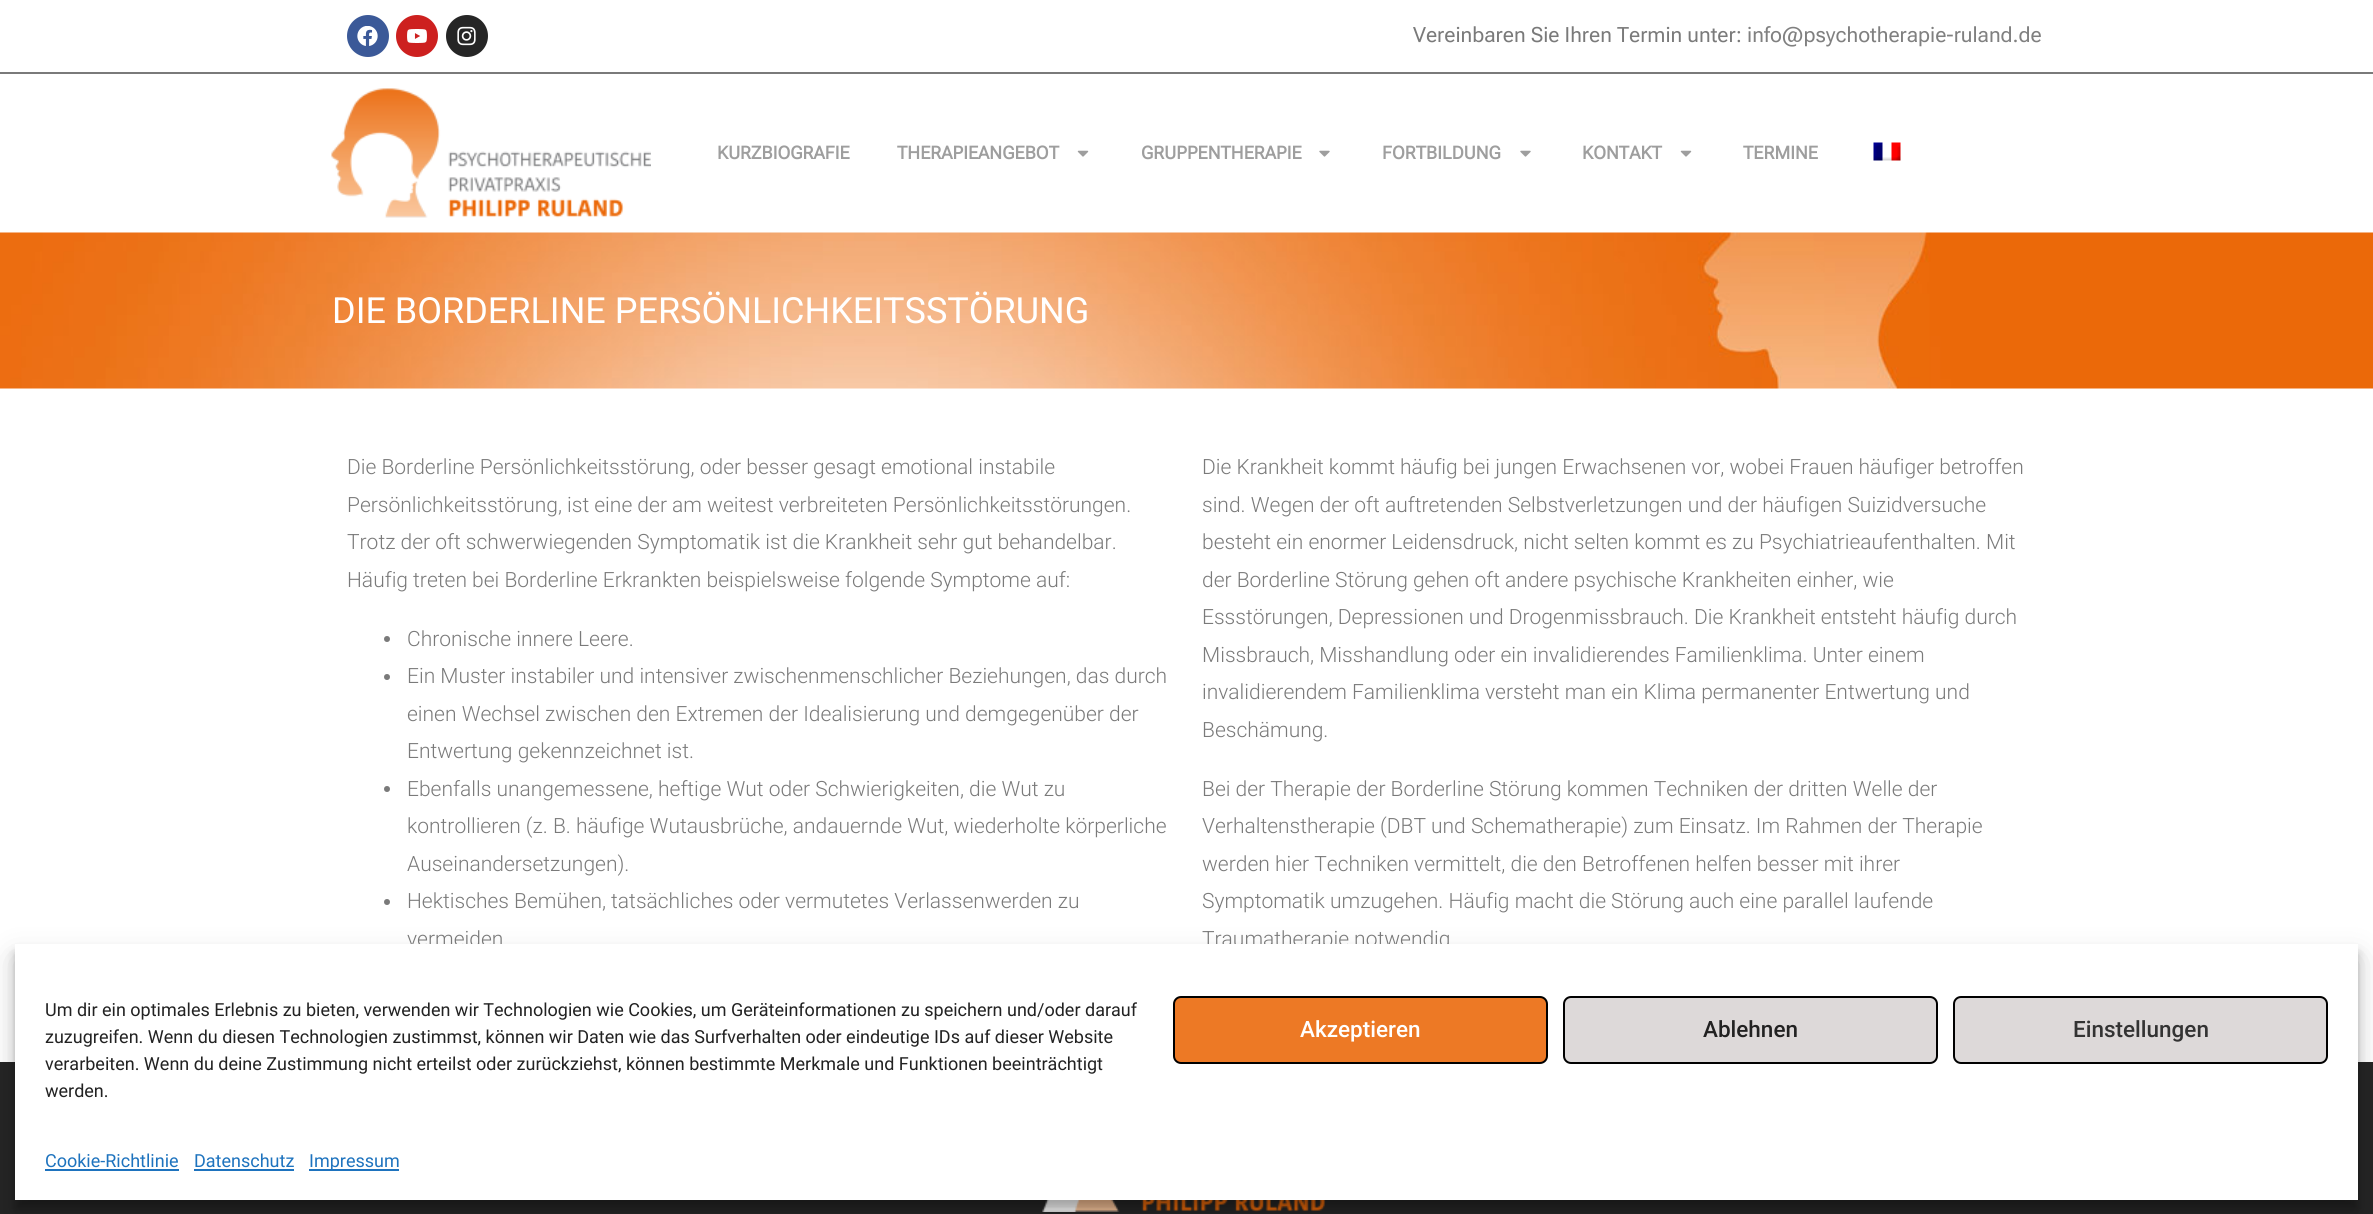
import math
import cairo


def round_path(ctx, x, y, w, h, r):
	ctx.new_sub_path()
	for i, (u, v) in enumerate([(x + w - r, y + h - r), (x + r, y + h - r), (x + r, y + r), (x + w - r, y + r)]):
		ctx.arc(u, v, r, i * math.pi / 2, (i + 1) * math.pi / 2)
	ctx.close_path()

def blur_box(ctx, x, y, w, h, r, blur, alpha):
	ctx.push_group_with_content(cairo.CONTENT_ALPHA)
	ctx.set_operator(cairo.OPERATOR_SOURCE)
	for i in range(15, -16, -2):
		e = blur * i / 6
		if min(w, h) + 2 * e > 0:
			ctx.set_source_rgba(0, 0, 0, alpha * math.erfc((i - 1) / 8.5) / 2)
			round_path(ctx, x - e, y - e, w + 2 * e, h + 2 * e, max(0, min(r + e + blur * .6, min(w, h) / 2 + e)))
			ctx.fill()
	ctx.mask(ctx.pop_group())

def paste(ctx, path, x, y, w, h):
	ctx.save()
	ctx.set_source_surface(cairo.ImageSurface.create_from_png(path), x, y)
	ctx.rectangle(x, y, w, h)
	ctx.fill()
	ctx.restore()

def draw(ctx):
	ctx.set_source_rgb(1, 1, 1)
	ctx.paint()
	ctx.set_source_rgb(0.478, 0.478, 0.478)
	ctx.rectangle(0, 72, 2373, 2)
	ctx.fill()
	ctx.set_source_rgb(0.231, 0.349, 0.596)
	ctx.arc(368, 36, 21, 0, 2 * math.pi)
	ctx.fill()
	paste(ctx, 'media/1.png', 357, 26, 21, 20)
	ctx.set_source_rgb(0.804, 0.125, 0.122)
	ctx.arc(417, 36, 21, 0, 2 * math.pi)
	ctx.fill()
	paste(ctx, 'media/2.png', 407, 29, 20, 14)
	ctx.set_source_rgb(0.149, 0.149, 0.149)
	ctx.arc(467, 36, 21, 0, 2 * math.pi)
	ctx.fill()
	paste(ctx, 'media/3.png', 457, 26, 19, 20)
	ctx.select_font_face('Roboto Flex')
	ctx.set_font_size(21)
	ctx.set_source_rgb(0.478, 0.478, 0.478)
	ctx.move_to(1413, 42)
	ctx.show_text('Vereinbaren Sie Ihren Termin unter:')
	ctx.set_source_rgb(0.502, 0.502, 0.502)
	ctx.move_to(1747, 42)
	ctx.show_text('info@psychotherapie-ruland.de')
	paste(ctx, 'media/4.png', 331, 88, 320, 130)
	ctx.select_font_face('Roboto Flex', cairo.FONT_SLANT_NORMAL, cairo.FONT_WEIGHT_BOLD)
	ctx.set_font_size(18)
	ctx.set_source_rgb(0.62, 0.62, 0.62)
	ctx.move_to(717, 159)
	ctx.show_text('KURZBIOGRAFIE')
	ctx.move_to(897, 159)
	ctx.show_text('THERAPIEANGEBOT')
	paste(ctx, 'media/5.png', 1077, 150, 12, 7)
	ctx.move_to(1141, 159)
	ctx.show_text('GRUPPENTHERAPIE')
	paste(ctx, 'media/6.png', 1319, 150, 11, 7)
	ctx.move_to(1382, 159)
	ctx.show_text('FORTBILDUNG')
	paste(ctx, 'media/6.png', 1520, 150, 11, 7)
	ctx.move_to(1582, 159)
	ctx.show_text('KONTAKT')
	paste(ctx, 'media/5.png', 1680, 150, 12, 7)
	ctx.move_to(1743, 159)
	ctx.show_text('TERMINE')
	paste(ctx, 'media/7.png', 1873, 142, 28, 19)
	paste(ctx, 'media/8.png', 0, 232, 2373, 157)
	ctx.select_font_face('Roboto')
	ctx.set_font_size(36)
	ctx.set_source_rgb(1, 1, 1)
	ctx.move_to(332, 323)
	ctx.show_text('DIE BORDERLINE PERSÖNLICHKEITSSTÖRUNG')
	ctx.select_font_face('Roboto Light')
	ctx.set_font_size(21)
	ctx.set_source_rgb(0.478, 0.478, 0.478)
	for x, y, s in [
		(347, 474, 'Die Borderline Persönlichkeitsstörung, oder besser gesagt emotional instabile'),
		(347, 512, 'Persönlichkeitsstörung, ist eine der am weitest verbreiteten Persönlichkeitsstörungen.'),
		(347, 549, 'Trotz der oft schwerwiegenden Symptomatik ist die Krankheit sehr gut behandelbar.'),
		(347, 587, 'Häufig treten bei Borderline Erkrankten beispielsweise folgende Symptome auf:'),
	]:
		ctx.move_to(x, y)
		ctx.show_text(s)
	ctx.new_path()
	ctx.arc(387, 639, 3, 0, 2 * math.pi)
	ctx.fill()
	ctx.move_to(407, 646)
	ctx.show_text('Chronische innere Leere.')
	ctx.new_path()
	ctx.arc(387, 677, 3, 0, 2 * math.pi)
	ctx.fill()
	for x, y, s in [
		(407, 683, 'Ein Muster instabiler und intensiver zwischenmenschlicher Beziehungen, das durch'),
		(407, 721, 'einen Wechsel zwischen den Extremen der Idealisierung und demgegenüber der'),
		(407, 758, 'Entwertung gekennzeichnet ist.'),
	]:
		ctx.move_to(x, y)
		ctx.show_text(s)
	ctx.new_path()
	ctx.arc(387, 789, 3, 0, 2 * math.pi)
	ctx.fill()
	for x, y, s in [
		(407, 796, 'Ebenfalls unangemessene, heftige Wut oder Schwierigkeiten, die Wut zu'),
		(407, 833, 'kontrollieren (z. B. häufige Wutausbrüche, andauernde Wut, wiederholte körperliche'),
		(407, 871, 'Auseinandersetzungen).'),
	]:
		ctx.move_to(x, y)
		ctx.show_text(s)
	ctx.new_path()
	ctx.arc(387, 902, 3, 0, 2 * math.pi)
	ctx.fill()
	for x, y, s in [
		(407, 908, 'Hektisches Bemühen, tatsächliches oder vermutetes Verlassenwerden zu'),
		(407, 946, 'vermeiden'),
		(1202, 474, 'Die Krankheit kommt häufig bei jungen Erwachsenen vor, wobei Frauen häufiger betroffen'),
		(1202, 512, 'sind. Wegen der oft auftretenden Selbstverletzungen und der häufigen Suizidversuche'),
		(1202, 549, 'besteht ein enormer Leidensdruck, nicht selten kommt es zu Psychiatrieaufenthalten. Mit'),
		(1202, 587, 'der Borderline Störung gehen oft andere psychische Krankheiten einher, wie'),
		(1202, 624, 'Essstörungen, Depressionen und Drogenmissbrauch. Die Krankheit entsteht häufig durch'),
		(1202, 662, 'Missbrauch, Misshandlung oder ein invalidierendes Familienklima. Unter einem'),
		(1202, 699, 'invalidierendem Familienklima versteht man ein Klima permanenter Entwertung und'),
		(1202, 737, 'Beschämung.'),
		(1202, 796, 'Bei der Therapie der Borderline Störung kommen Techniken der dritten Welle der'),
		(1202, 833, 'Verhaltenstherapie (DBT und Schematherapie) zum Einsatz. Im Rahmen der Therapie'),
		(1202, 871, 'werden hier Techniken vermittelt, die den Betroffenen helfen besser mit ihrer'),
		(1202, 908, 'Symptomatik umzugehen. Häufig macht die Störung auch eine parallel laufende'),
		(1202, 946, 'Traumatherapie notwendig'),
	]:
		ctx.move_to(x, y)
		ctx.show_text(s)
	ctx.set_source_rgb(0.145, 0.145, 0.145)
	ctx.rectangle(0, 1062, 2373, 152)
	ctx.fill()
	paste(ctx, 'media/9.png', 1042, 1200, 284, 12)
	ctx.set_source_rgb(0, 0, 0)
	blur_box(ctx, 15, 953, 2343, 256, 0, 4.5, 0.23)
	blur_box(ctx, 15, 959, 2343, 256, 0, 15, 0.19)
	ctx.set_source_rgb(1, 1, 1)
	ctx.rectangle(15, 944, 2343, 256)
	ctx.fill()
	ctx.select_font_face('Roboto')
	ctx.set_font_size(18)
	ctx.set_source_rgb(0.133, 0.133, 0.133)
	for x, y, s in [
		(45, 1016, 'Um dir ein optimales Erlebnis zu bieten, verwenden wir Technologien wie Cookies, um Geräteinformationen zu speichern und/oder darauf'),
		(45, 1043, 'zuzugreifen. Wenn du diesen Technologien zustimmst, können wir Daten wie das Surfverhalten oder eindeutige IDs auf dieser Website'),
		(45, 1070, 'verarbeiten. Wenn du deine Zustimmung nicht erteilst oder zurückziehst, können bestimmte Merkmale und Funktionen beeinträchtigt'),
		(45, 1097, 'werden.'),
	]:
		ctx.move_to(x, y)
		ctx.show_text(s)
	ctx.set_source_rgb(0.929, 0.475, 0.145)
	round_path(ctx, 1174, 997, 373, 66, 7)
	ctx.fill_preserve()
	ctx.set_source_rgb(0, 0, 0)
	ctx.stroke()
	ctx.select_font_face('Roboto Medium')
	ctx.set_font_size(22.5)
	ctx.set_source_rgb(1, 1, 1)
	ctx.move_to(1300, 1037)
	ctx.show_text('Akzeptieren')
	ctx.set_source_rgb(0.867, 0.851, 0.851)
	round_path(ctx, 1564, 997, 373, 66, 7)
	ctx.fill_preserve()
	ctx.set_source_rgb(0, 0, 0)
	ctx.stroke()
	ctx.set_source_rgb(0.133, 0.133, 0.133)
	ctx.move_to(1703, 1037)
	ctx.show_text('Ablehnen')
	ctx.set_source_rgb(0.867, 0.851, 0.851)
	round_path(ctx, 1954, 997, 373, 66, 7)
	ctx.fill_preserve()
	ctx.set_source_rgb(0, 0, 0)
	ctx.stroke()
	ctx.set_source_rgb(0.2, 0.2, 0.2)
	ctx.move_to(2073, 1037)
	ctx.show_text('Einstellungen')
	ctx.select_font_face('Roboto')
	ctx.set_font_size(18)
	ctx.set_source_rgb(0.118, 0.451, 0.745)
	ctx.move_to(45, 1167)
	ctx.show_text('Cookie-Richtlinie')
	ctx.rectangle(45, 1169, 134, 2)
	ctx.fill()
	ctx.move_to(194, 1167)
	ctx.show_text('Datenschutz')
	ctx.rectangle(194, 1169, 100, 2)
	ctx.fill()
	ctx.rectangle(309, 1169, 90, 2)
	ctx.fill()
	ctx.move_to(309, 1167)
	ctx.show_text('Impressum')


surface = cairo.ImageSurface(cairo.FORMAT_RGB24, 2373, 1214)
ctx = cairo.Context(surface)
options = cairo.FontOptions()
options.set_hint_metrics(cairo.HINT_METRICS_OFF)
options.set_hint_style(cairo.HINT_STYLE_NONE)
ctx.set_font_options(options)
ctx.set_miter_limit(4)
draw(ctx)
surface.write_to_png('image.png')
